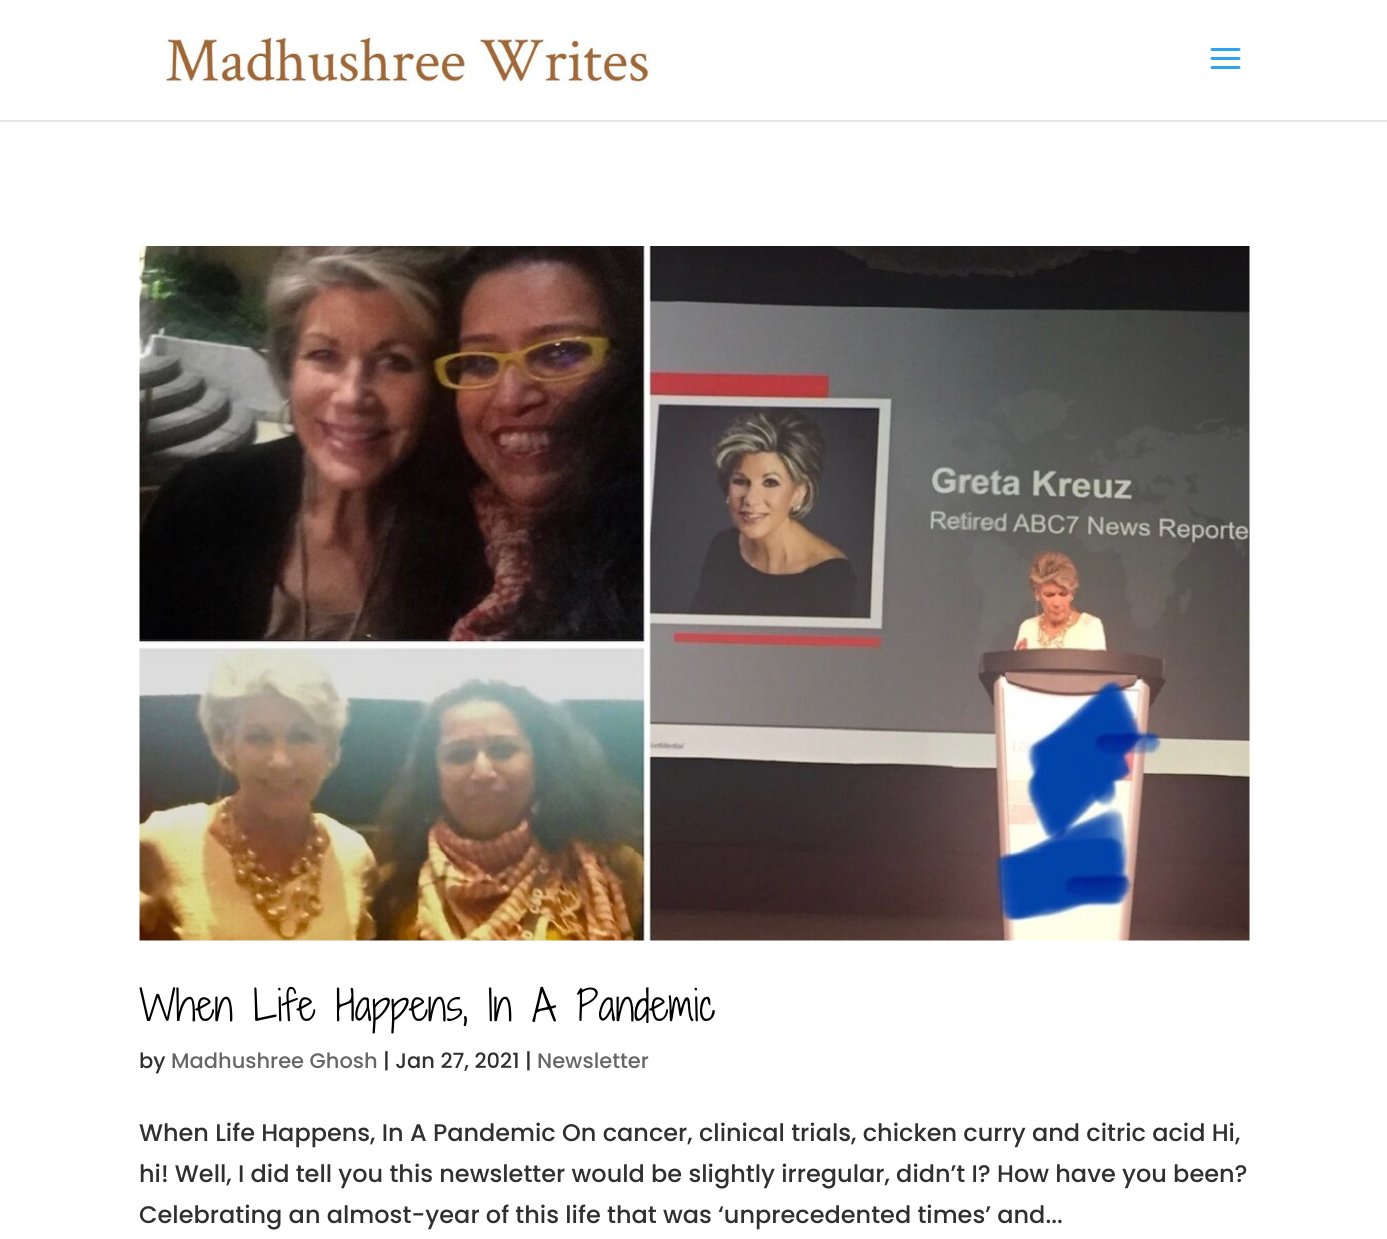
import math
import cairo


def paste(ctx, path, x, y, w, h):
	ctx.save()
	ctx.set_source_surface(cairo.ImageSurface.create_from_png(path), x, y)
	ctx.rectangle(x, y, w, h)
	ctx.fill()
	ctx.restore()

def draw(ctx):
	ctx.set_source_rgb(1, 1, 1)
	ctx.paint()
	ctx.set_source_rgb(0.902, 0.902, 0.902)
	ctx.new_path()
	ctx.move_to(0, 120)
	ctx.line_to(0, 122)
	ctx.line_to(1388, 122)
	ctx.line_to(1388, 2)
	ctx.line_to(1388, 120)
	ctx.close_path()
	ctx.fill()
	paste(ctx, 'media/1.png', 163, 27, 493, 63)
	paste(ctx, 'media/2.png', 1210, 48, 31, 21)
	paste(ctx, 'media/3.png', 139, 246, 1111, 695)
	ctx.select_font_face('Shadows Into Light Two Light')
	ctx.set_font_size(40.5)
	ctx.set_source_rgb(0, 0, 0)
	ctx.move_to(139, 1021)
	ctx.show_text('When Life Happens, In A Pandemic')
	ctx.select_font_face('Poppins Medium')
	ctx.set_font_size(21)
	ctx.set_source_rgb(0.188, 0.188, 0.188)
	ctx.move_to(139, 1068)
	ctx.show_text('by')
	ctx.set_source_rgb(0.4, 0.4, 0.4)
	ctx.move_to(171, 1068)
	ctx.show_text('Madhushree Ghosh')
	ctx.set_source_rgb(0.188, 0.188, 0.188)
	ctx.move_to(383, 1068)
	ctx.show_text('| Jan 27, 2021 |')
	ctx.set_source_rgb(0.4, 0.4, 0.4)
	ctx.move_to(537, 1068)
	ctx.show_text('Newsletter')
	ctx.set_font_size(24)
	ctx.set_source_rgb(0.188, 0.188, 0.188)
	for x, y, s in [
		(139, 1141, 'When Life Happens, In A Pandemic On cancer, clinical trials, chicken curry and citric acid Hi,'),
		(139, 1182, 'hi! Well, I did tell you this newsletter would be slightly irregular, didn’t I? How have you been?'),
		(139, 1223, 'Celebrating an almost-year of this life that was ‘unprecedented times’ and...'),
	]:
		ctx.move_to(x, y)
		ctx.show_text(s)


surface = cairo.ImageSurface(cairo.FORMAT_RGB24, 1387, 1239)
ctx = cairo.Context(surface)
options = cairo.FontOptions()
options.set_hint_metrics(cairo.HINT_METRICS_OFF)
options.set_hint_style(cairo.HINT_STYLE_NONE)
ctx.set_font_options(options)
ctx.set_miter_limit(4)
draw(ctx)
surface.write_to_png('image.png')
